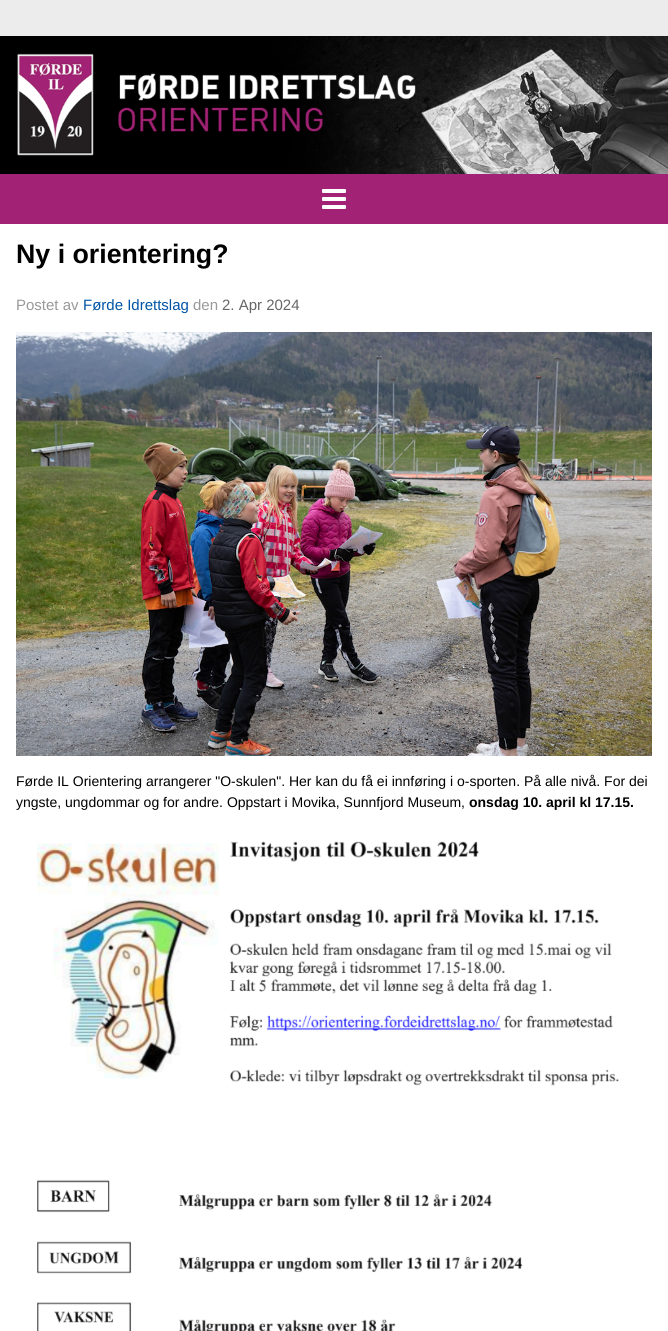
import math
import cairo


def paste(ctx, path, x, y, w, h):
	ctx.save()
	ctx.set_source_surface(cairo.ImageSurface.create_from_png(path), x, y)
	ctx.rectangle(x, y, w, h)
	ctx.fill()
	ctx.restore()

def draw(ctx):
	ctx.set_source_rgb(0.925, 0.925, 0.925)
	ctx.paint()
	paste(ctx, 'media/1.png', 0, 36, 668, 138)
	ctx.set_source_rgb(0.635, 0.137, 0.459)
	ctx.rectangle(0, 174, 668, 50)
	ctx.fill()
	paste(ctx, 'media/2.png', 322, 189, 24, 20)
	ctx.set_source_rgb(1, 1, 1)
	ctx.rectangle(0, 224, 668, 1107)
	ctx.fill()
	ctx.select_font_face('Liberation Sans', cairo.FONT_SLANT_NORMAL, cairo.FONT_WEIGHT_BOLD)
	ctx.set_font_size(26.75)
	ctx.set_source_rgb(0, 0, 0)
	ctx.move_to(16, 263)
	ctx.show_text('Ny i orientering?')
	ctx.select_font_face('Liberation Sans')
	ctx.set_font_size(15)
	ctx.set_source_rgb(0.6, 0.6, 0.6)
	ctx.move_to(16, 310)
	ctx.show_text('Postet av')
	ctx.set_source_rgb(0, 0.329, 0.651)
	ctx.move_to(83, 310)
	ctx.show_text('Førde Idrettslag')
	ctx.set_source_rgb(0.6, 0.6, 0.6)
	ctx.move_to(193, 310)
	ctx.show_text('den')
	ctx.set_source_rgb(0.4, 0.4, 0.4)
	ctx.move_to(222, 310)
	ctx.show_text('2. Apr 2024')
	paste(ctx, 'media/3.png', 16, 332, 636, 424)
	ctx.set_font_size(14)
	ctx.set_source_rgb(0, 0, 0)
	ctx.move_to(16, 786)
	ctx.show_text('Førde IL Orientering arrangerer "O-skulen". Her kan du få ei innføring i o-sporten. På alle nivå. For dei')
	ctx.move_to(16, 807)
	ctx.show_text('yngste, ungdommar og for andre. Oppstart i Movika, Sunnfjord Museum,')
	ctx.select_font_face('Liberation Sans', cairo.FONT_SLANT_NORMAL, cairo.FONT_WEIGHT_BOLD)
	ctx.move_to(469, 807)
	ctx.show_text('onsdag 10. april kl 17.15.')
	paste(ctx, 'media/4.png', 37, 841, 582, 490)


surface = cairo.ImageSurface(cairo.FORMAT_RGB24, 668, 1331)
ctx = cairo.Context(surface)
options = cairo.FontOptions()
options.set_hint_metrics(cairo.HINT_METRICS_OFF)
options.set_hint_style(cairo.HINT_STYLE_NONE)
ctx.set_font_options(options)
ctx.set_miter_limit(4)
draw(ctx)
surface.write_to_png('image.png')
